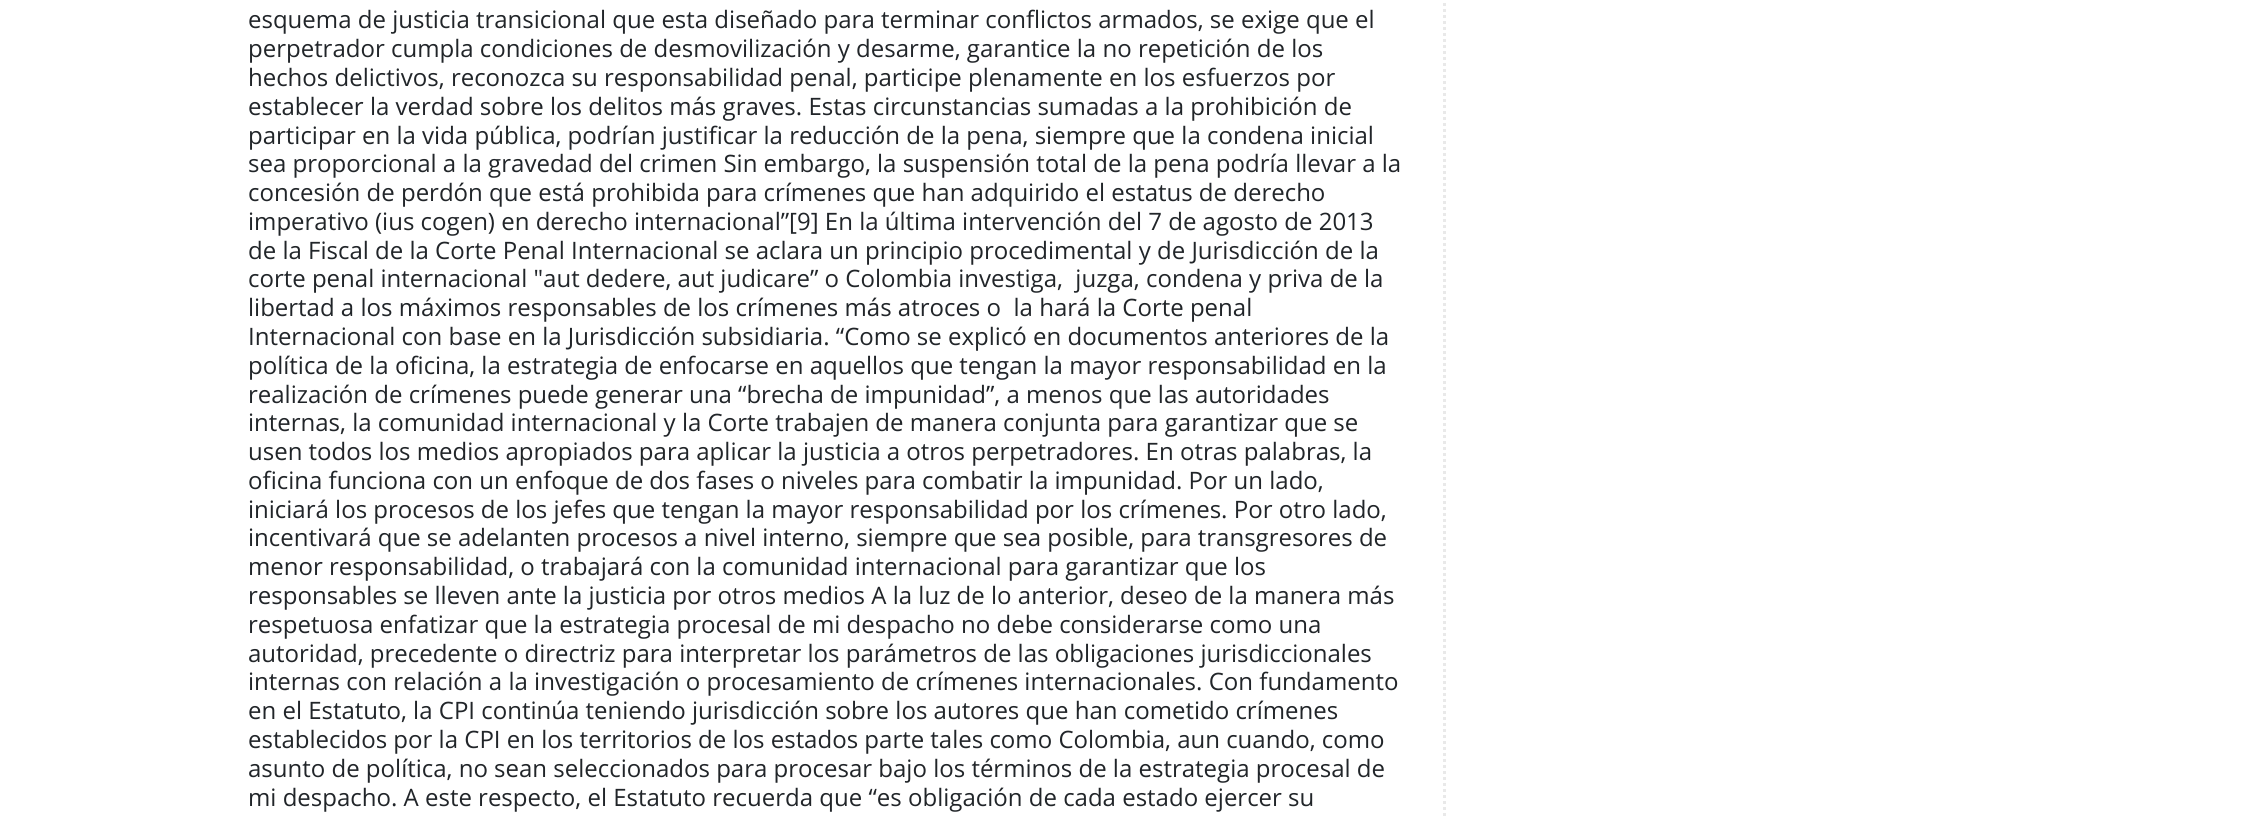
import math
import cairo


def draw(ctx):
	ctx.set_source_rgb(1, 1, 1)
	ctx.paint()
	ctx.select_font_face('Open Sans')
	ctx.set_font_size(24)
	ctx.set_source_rgb(0.129, 0.145, 0.161)
	for x, y, s in [
		(248, 28, 'esquema de justicia transicional que esta diseñado para terminar conflictos armados, se exige que el'),
		(248, 57, 'perpetrador cumpla condiciones de desmovilización y desarme, garantice la no repetición de los'),
		(248, 86, 'hechos delictivos, reconozca su responsabilidad penal, participe plenamente en los esfuerzos por'),
		(248, 115, 'establecer la verdad sobre los delitos más graves. Estas circunstancias sumadas a la prohibición de'),
		(248, 144, 'participar en la vida pública, podrían justificar la reducción de la pena, siempre que la condena inicial'),
		(248, 172, 'sea proporcional a la gravedad del crimen Sin embargo, la suspensión total de la pena podría llevar a la'),
		(248, 201, 'concesión de perdón que está prohibida para crímenes que han adquirido el estatus de derecho'),
		(248, 230, 'imperativo (ius cogen) en derecho internacional”[9] En la última intervención del 7 de agosto de 2013'),
		(248, 259, 'de la Fiscal de la Corte Penal Internacional se aclara un principio procedimental y de Jurisdicción de la'),
		(248, 287, 'corte penal internacional "aut dedere, aut judicare” o Colombia investiga,  juzga, condena y priva de la'),
		(248, 316, 'libertad a los máximos responsables de los crímenes más atroces o  la hará la Corte penal'),
		(248, 345, 'Internacional con base en la Jurisdicción subsidiaria. “Como se explicó en documentos anteriores de la'),
		(248, 374, 'política de la oficina, la estrategia de enfocarse en aquellos que tengan la mayor responsabilidad en la'),
		(248, 403, 'realización de crímenes puede generar una “brecha de impunidad”, a menos que las autoridades'),
		(248, 431, 'internas, la comunidad internacional y la Corte trabajen de manera conjunta para garantizar que se'),
		(248, 460, 'usen todos los medios apropiados para aplicar la justicia a otros perpetradores. En otras palabras, la'),
		(248, 489, 'oficina funciona con un enfoque de dos fases o niveles para combatir la impunidad. Por un lado,'),
		(248, 518, 'iniciará los procesos de los jefes que tengan la mayor responsabilidad por los crímenes. Por otro lado,'),
		(248, 546, 'incentivará que se adelanten procesos a nivel interno, siempre que sea posible, para transgresores de'),
		(248, 575, 'menor responsabilidad, o trabajará con la comunidad internacional para garantizar que los'),
		(248, 604, 'responsables se lleven ante la justicia por otros medios A la luz de lo anterior, deseo de la manera más'),
		(248, 633, 'respetuosa enfatizar que la estrategia procesal de mi despacho no debe considerarse como una'),
		(248, 662, 'autoridad, precedente o directriz para interpretar los parámetros de las obligaciones jurisdiccionales'),
		(248, 690, 'internas con relación a la investigación o procesamiento de crímenes internacionales. Con fundamento'),
		(248, 719, 'en el Estatuto, la CPI continúa teniendo jurisdicción sobre los autores que han cometido crímenes'),
		(248, 748, 'establecidos por la CPI en los territorios de los estados parte tales como Colombia, aun cuando, como'),
		(248, 777, 'asunto de política, no sean seleccionados para procesar bajo los términos de la estrategia procesal de'),
		(248, 806, 'mi despacho. A este respecto, el Estatuto recuerda que “es obligación de cada estado ejercer su'),
	]:
		ctx.move_to(x, y)
		ctx.show_text(s)
	ctx.new_path()
	ctx.move_to(1444.5, -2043)
	ctx.line_to(1444.5, 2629.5)
	ctx.set_source_rgb(0.914, 0.914, 0.914)
	ctx.set_line_width(3)
	ctx.set_dash([3, 3])
	ctx.stroke()


surface = cairo.ImageSurface(cairo.FORMAT_RGB24, 2249, 818)
ctx = cairo.Context(surface)
options = cairo.FontOptions()
options.set_hint_metrics(cairo.HINT_METRICS_OFF)
options.set_hint_style(cairo.HINT_STYLE_NONE)
ctx.set_font_options(options)
ctx.set_miter_limit(4)
draw(ctx)
surface.write_to_png('image.png')
